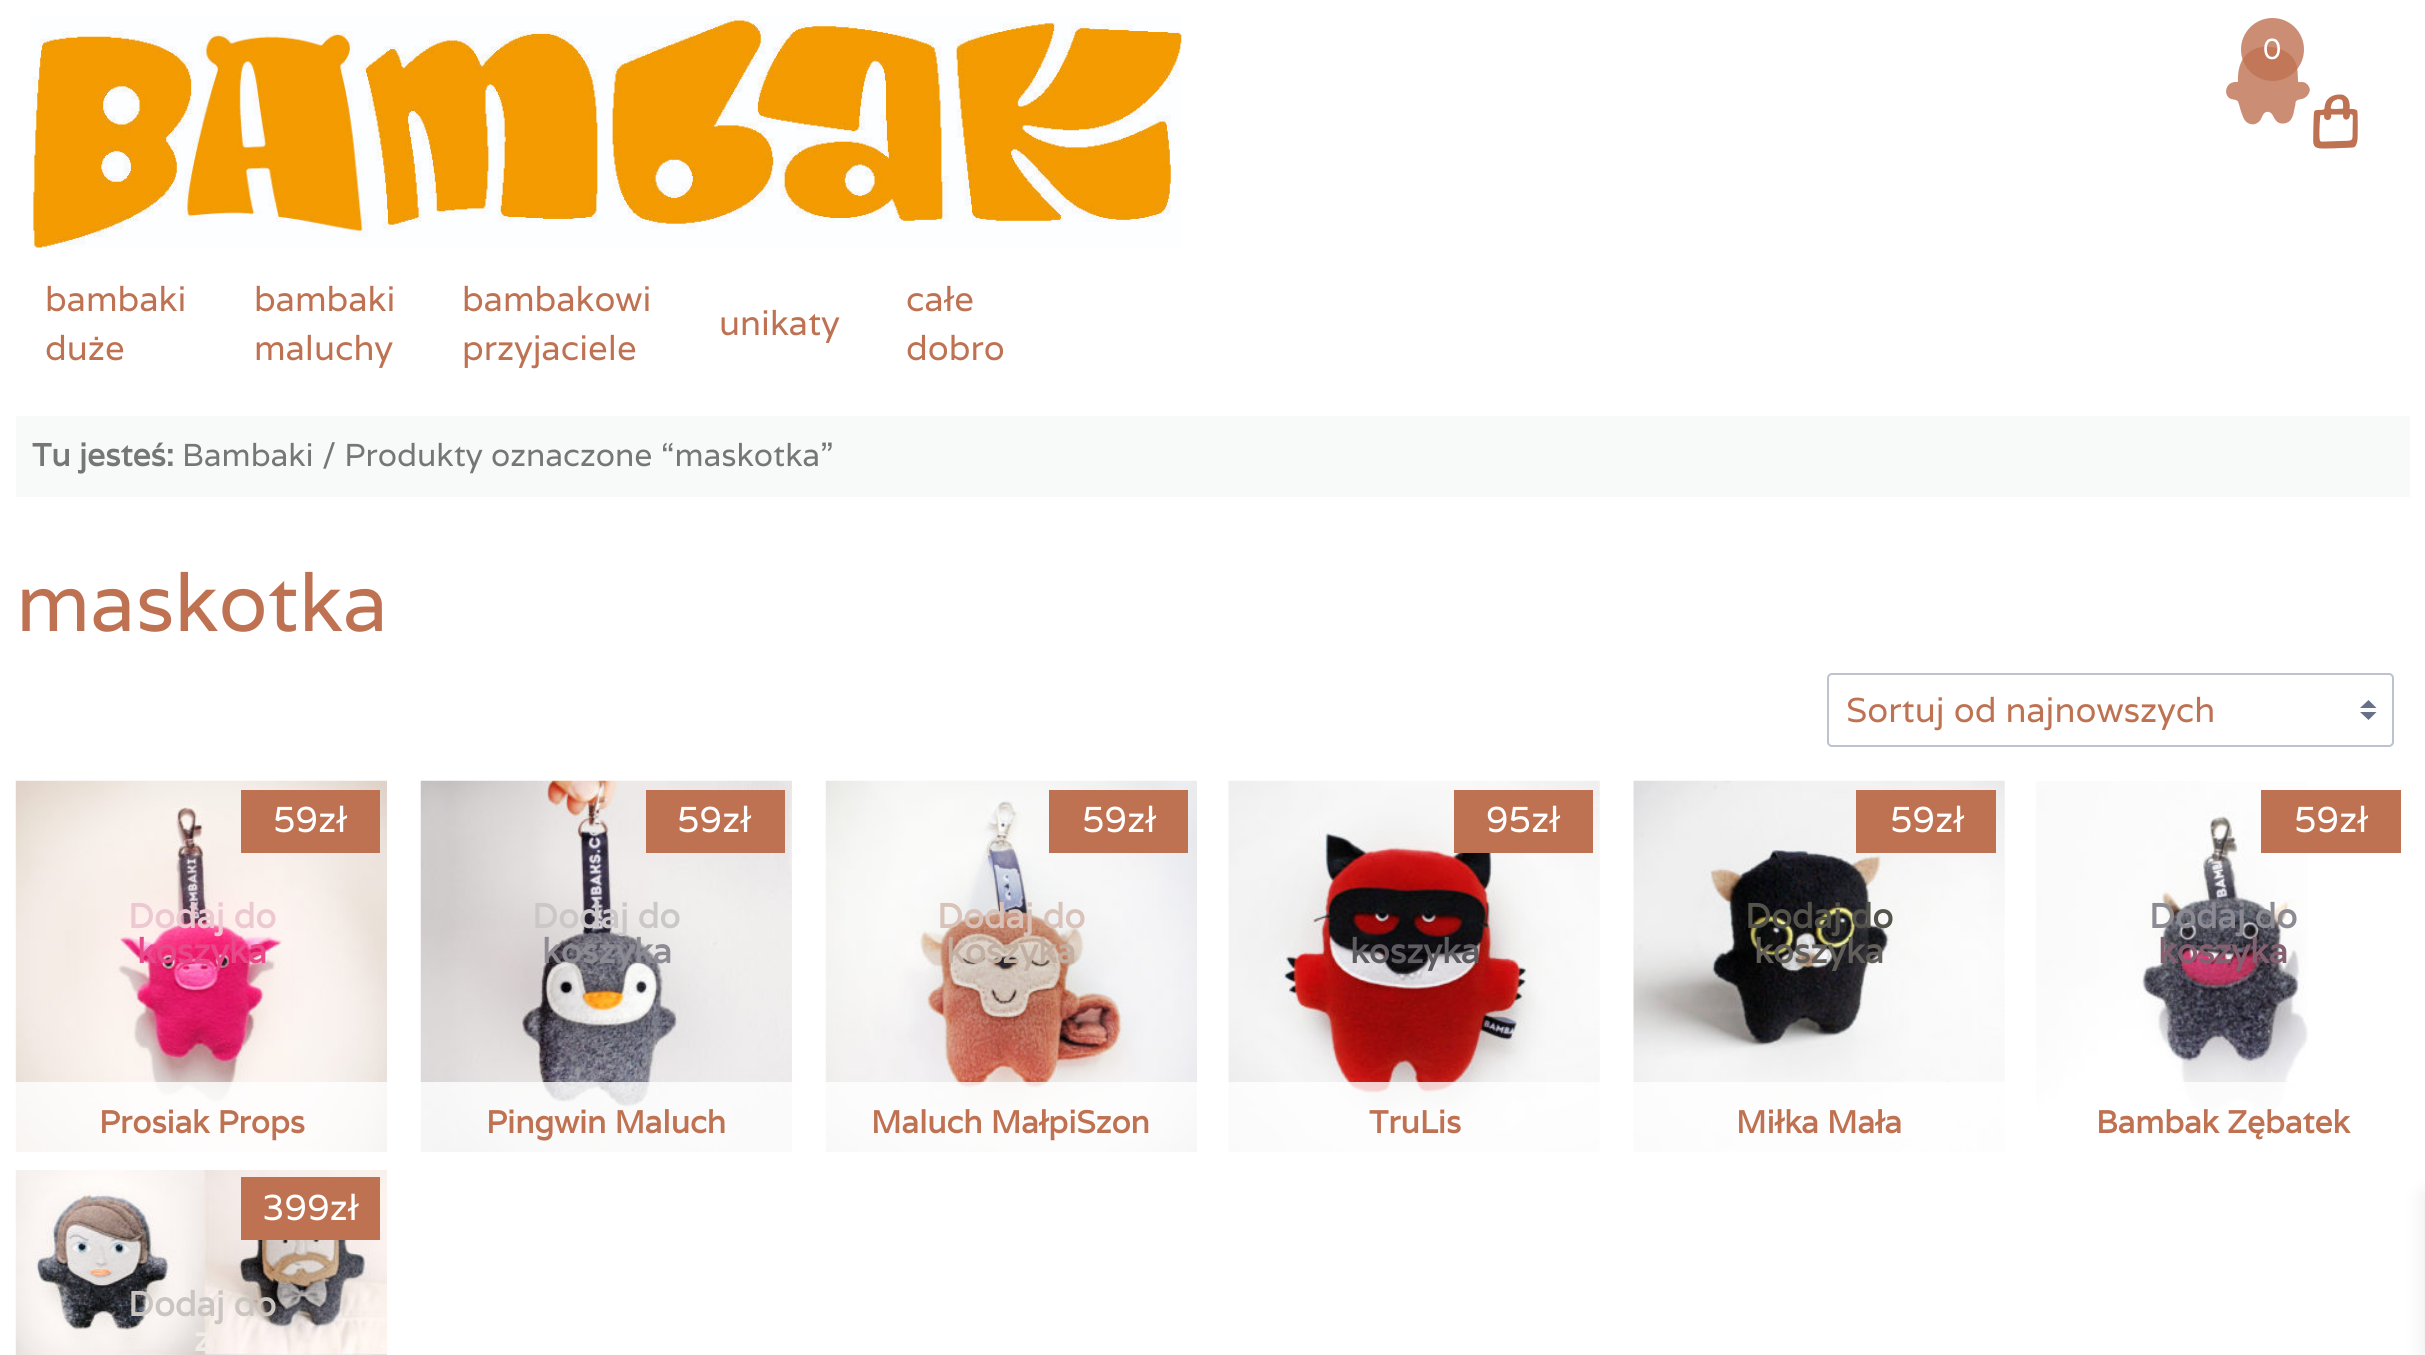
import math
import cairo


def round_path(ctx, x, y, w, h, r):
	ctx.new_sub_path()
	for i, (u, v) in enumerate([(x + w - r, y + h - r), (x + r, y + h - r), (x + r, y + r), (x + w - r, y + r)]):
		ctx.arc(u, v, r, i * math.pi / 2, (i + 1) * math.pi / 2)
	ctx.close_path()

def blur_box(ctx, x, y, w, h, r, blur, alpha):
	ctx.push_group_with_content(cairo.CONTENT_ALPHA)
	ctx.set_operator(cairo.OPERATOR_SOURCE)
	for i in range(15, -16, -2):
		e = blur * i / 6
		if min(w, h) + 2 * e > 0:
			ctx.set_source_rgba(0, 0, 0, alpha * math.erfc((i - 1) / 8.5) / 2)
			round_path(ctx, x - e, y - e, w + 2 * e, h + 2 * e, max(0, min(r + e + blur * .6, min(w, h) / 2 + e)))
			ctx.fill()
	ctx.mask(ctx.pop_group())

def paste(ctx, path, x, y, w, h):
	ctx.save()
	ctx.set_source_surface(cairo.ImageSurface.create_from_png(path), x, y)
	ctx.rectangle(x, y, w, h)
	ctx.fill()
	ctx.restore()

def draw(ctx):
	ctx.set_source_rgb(1, 1, 1)
	ctx.paint()
	paste(ctx, 'media/2.png', 2226, 46, 84, 79)
	ctx.set_source_rgba(0.745, 0.447, 0.322, 0.8)
	ctx.arc(2272.5, 49.5, 31.5, 0, 2 * math.pi)
	ctx.fill()
	ctx.select_font_face('Varela')
	ctx.set_font_size(29)
	ctx.set_source_rgb(1, 1, 1)
	ctx.move_to(2263, 59)
	ctx.show_text('0')
	paste(ctx, 'media/1.png', 2313, 94, 45, 55)
	ctx.set_source_rgb(0, 0, 0)
	blur_box(ctx, 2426, 1195, 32, 160, 0, 11, 0.1)
	paste(ctx, 'media/3.png', 31, 15, 1151, 233)
	ctx.set_font_size(34.5)
	ctx.set_source_rgb(0.745, 0.447, 0.322)
	for x, y, s in [
		(45, 311, 'bambaki'),
		(45, 360, 'duże'),
		(254, 311, 'bambaki'),
		(254, 360, 'maluchy'),
		(462, 311, 'bambakowi'),
		(462, 360, 'przyjaciele'),
		(719, 335, 'unikaty'),
		(906, 311, 'całe'),
		(906, 360, 'dobro'),
	]:
		ctx.move_to(x, y)
		ctx.show_text(s)
	ctx.set_source_rgb(0.969, 0.973, 0.976)
	ctx.rectangle(16, 416, 2394, 81)
	ctx.fill()
	ctx.select_font_face('Varela', cairo.FONT_SLANT_NORMAL, cairo.FONT_WEIGHT_BOLD)
	ctx.set_font_size(31.7)
	ctx.set_source_rgb(0.463, 0.463, 0.463)
	ctx.move_to(32, 466)
	ctx.show_text('Tu jesteś:')
	ctx.select_font_face('Varela')
	ctx.move_to(182, 466)
	ctx.show_text('Bambaki / Produkty oznaczone “maskotka”')
	ctx.set_font_size(81)
	ctx.set_source_rgb(0.745, 0.447, 0.322)
	ctx.move_to(16, 631)
	ctx.show_text('maskotka')
	ctx.set_source_rgb(0.4, 0.443, 0.537)
	ctx.new_path()
	ctx.move_to(2368.5, 700)
	ctx.line_to(2360, 708)
	ctx.line_to(2376.5, 708)
	ctx.close_path()
	ctx.move_to(2368.5, 720)
	ctx.line_to(2360, 712)
	ctx.line_to(2376.5, 712)
	ctx.close_path()
	ctx.fill()
	round_path(ctx, 1828, 674, 565, 72, 4)
	ctx.set_source_rgb(0.737, 0.765, 0.808)
	ctx.stroke()
	ctx.set_font_size(34.5)
	ctx.set_source_rgb(0.745, 0.447, 0.322)
	ctx.move_to(1846, 722)
	ctx.show_text('Sortuj od najnowszych')
	paste(ctx, 'media/4.png', 15, 780, 372, 372)
	ctx.rectangle(241, 790, 139, 63)
	ctx.fill()
	ctx.set_font_size(36)
	ctx.set_source_rgb(1, 1, 1)
	ctx.move_to(273, 832)
	ctx.show_text('59zł')
	ctx.set_source_rgba(1, 1, 1, 0.8)
	ctx.rectangle(15, 1082, 372, 70)
	ctx.fill()
	ctx.select_font_face('Varela', cairo.FONT_SLANT_NORMAL, cairo.FONT_WEIGHT_BOLD)
	ctx.set_font_size(31.5)
	ctx.set_source_rgb(0.745, 0.447, 0.322)
	ctx.move_to(99, 1133)
	ctx.show_text('Prosiak Props')
	ctx.set_font_size(34.5)
	ctx.set_source_rgb(0.925, 0.788, 0.82)
	ctx.move_to(128, 928)
	ctx.show_text('Dodaj do')
	ctx.set_source_rgb(0.91, 0.286, 0.533)
	ctx.move_to(137, 963)
	ctx.show_text('koszyka')
	paste(ctx, 'media/5.png', 420, 780, 372, 372)
	ctx.set_source_rgb(0.745, 0.447, 0.322)
	ctx.rectangle(646, 790, 139, 63)
	ctx.fill()
	ctx.select_font_face('Varela')
	ctx.set_font_size(36)
	ctx.set_source_rgb(1, 1, 1)
	ctx.move_to(677, 832)
	ctx.show_text('59zł')
	ctx.set_source_rgba(1, 1, 1, 0.8)
	ctx.rectangle(420, 1082, 372, 70)
	ctx.fill()
	ctx.select_font_face('Varela', cairo.FONT_SLANT_NORMAL, cairo.FONT_WEIGHT_BOLD)
	ctx.set_font_size(31.5)
	ctx.set_source_rgb(0.745, 0.447, 0.322)
	ctx.move_to(486, 1133)
	ctx.show_text('Pingwin Maluch')
	ctx.set_font_size(34.5)
	ctx.set_source_rgb(0.796, 0.78, 0.788)
	ctx.move_to(532, 928)
	ctx.show_text('Dodaj do')
	ctx.set_source_rgb(0.549, 0.541, 0.573)
	ctx.move_to(542, 963)
	ctx.show_text('koszyka')
	paste(ctx, 'media/6.png', 825, 780, 372, 372)
	ctx.set_source_rgb(0.745, 0.447, 0.322)
	ctx.rectangle(1049, 790, 139, 63)
	ctx.fill()
	ctx.select_font_face('Varela')
	ctx.set_font_size(36)
	ctx.set_source_rgb(1, 1, 1)
	ctx.move_to(1082, 832)
	ctx.show_text('59zł')
	ctx.set_source_rgba(1, 1, 1, 0.8)
	ctx.rectangle(825, 1082, 372, 70)
	ctx.fill()
	ctx.select_font_face('Varela', cairo.FONT_SLANT_NORMAL, cairo.FONT_WEIGHT_BOLD)
	ctx.set_font_size(31.5)
	ctx.set_source_rgb(0.745, 0.447, 0.322)
	ctx.move_to(871, 1133)
	ctx.show_text('Maluch MałpiSzon')
	ctx.set_font_size(34.5)
	ctx.set_source_rgb(0.847, 0.761, 0.725)
	ctx.move_to(937, 928)
	ctx.show_text('Dodaj do')
	ctx.set_source_rgb(0.761, 0.686, 0.635)
	ctx.move_to(946, 963)
	ctx.show_text('koszyka')
	paste(ctx, 'media/7.png', 1228, 780, 372, 372)
	ctx.set_source_rgb(0.745, 0.447, 0.322)
	ctx.rectangle(1454, 790, 139, 63)
	ctx.fill()
	ctx.select_font_face('Varela')
	ctx.set_font_size(36)
	ctx.set_source_rgb(1, 1, 1)
	ctx.move_to(1486, 832)
	ctx.show_text('95zł')
	ctx.set_source_rgba(1, 1, 1, 0.8)
	ctx.rectangle(1228, 1082, 372, 70)
	ctx.fill()
	ctx.select_font_face('Varela', cairo.FONT_SLANT_NORMAL, cairo.FONT_WEIGHT_BOLD)
	ctx.set_font_size(31.5)
	ctx.set_source_rgb(0.745, 0.447, 0.322)
	ctx.move_to(1369, 1133)
	ctx.show_text('TruLis')
	ctx.set_font_size(34.5)
	ctx.set_source_rgb(0.373, 0.361, 0.38)
	ctx.move_to(1350, 963)
	ctx.show_text('koszyka')
	paste(ctx, 'media/8.png', 1633, 780, 372, 372)
	ctx.set_source_rgb(0.745, 0.447, 0.322)
	ctx.rectangle(1856, 790, 140, 63)
	ctx.fill()
	ctx.select_font_face('Varela')
	ctx.set_font_size(36)
	ctx.set_source_rgb(1, 1, 1)
	ctx.move_to(1890, 832)
	ctx.show_text('59zł')
	ctx.set_source_rgba(1, 1, 1, 0.8)
	ctx.rectangle(1633, 1082, 372, 70)
	ctx.fill()
	ctx.select_font_face('Varela', cairo.FONT_SLANT_NORMAL, cairo.FONT_WEIGHT_BOLD)
	ctx.set_font_size(31.5)
	ctx.set_source_rgb(0.745, 0.447, 0.322)
	ctx.move_to(1736, 1133)
	ctx.show_text('Miłka Mała')
	ctx.set_font_size(34.5)
	ctx.set_source_rgb(0.329, 0.325, 0.294)
	ctx.move_to(1745, 928)
	ctx.show_text('Dodaj do')
	ctx.set_source_rgb(0.384, 0.373, 0.353)
	ctx.move_to(1754, 963)
	ctx.show_text('koszyka')
	paste(ctx, 'media/9.png', 2036, 781, 272, 334)
	ctx.set_source_rgb(0.745, 0.447, 0.322)
	ctx.rectangle(2261, 790, 140, 63)
	ctx.fill()
	ctx.select_font_face('Varela')
	ctx.set_font_size(36)
	ctx.set_source_rgb(1, 1, 1)
	ctx.move_to(2294, 832)
	ctx.show_text('59zł')
	ctx.set_source_rgba(1, 1, 1, 0.8)
	ctx.rectangle(2183, 1082, 104, 33)
	ctx.fill()
	ctx.select_font_face('Varela', cairo.FONT_SLANT_NORMAL, cairo.FONT_WEIGHT_BOLD)
	ctx.set_font_size(31.5)
	ctx.set_source_rgb(0.745, 0.447, 0.322)
	ctx.move_to(2096, 1133)
	ctx.show_text('Bambak Zębatek')
	ctx.set_font_size(34.5)
	ctx.set_source_rgb(0.549, 0.541, 0.573)
	ctx.move_to(2149, 928)
	ctx.show_text('Dodaj do')
	ctx.set_source_rgb(0.518, 0.376, 0.439)
	ctx.move_to(2158, 963)
	ctx.show_text('koszyka')
	paste(ctx, 'media/10.png', 15, 1170, 372, 185)
	ctx.set_source_rgb(0.745, 0.447, 0.322)
	ctx.rectangle(241, 1177, 139, 63)
	ctx.fill()
	ctx.select_font_face('Varela')
	ctx.set_font_size(36)
	ctx.set_source_rgb(1, 1, 1)
	ctx.move_to(262, 1220)
	ctx.show_text('399zł')
	ctx.select_font_face('Varela', cairo.FONT_SLANT_NORMAL, cairo.FONT_WEIGHT_BOLD)
	ctx.set_font_size(34.5)
	ctx.set_source_rgb(0.796, 0.773, 0.757)
	ctx.move_to(128, 1316)
	ctx.show_text('Dodaj do')
	ctx.set_source_rgb(0.949, 0.922, 0.906)
	ctx.move_to(194, 1351)
	ctx.show_text('z')


surface = cairo.ImageSurface(cairo.FORMAT_RGB24, 2425, 1355)
ctx = cairo.Context(surface)
options = cairo.FontOptions()
options.set_hint_metrics(cairo.HINT_METRICS_OFF)
options.set_hint_style(cairo.HINT_STYLE_NONE)
ctx.set_font_options(options)
ctx.set_miter_limit(4)
draw(ctx)
surface.write_to_png('image.png')
